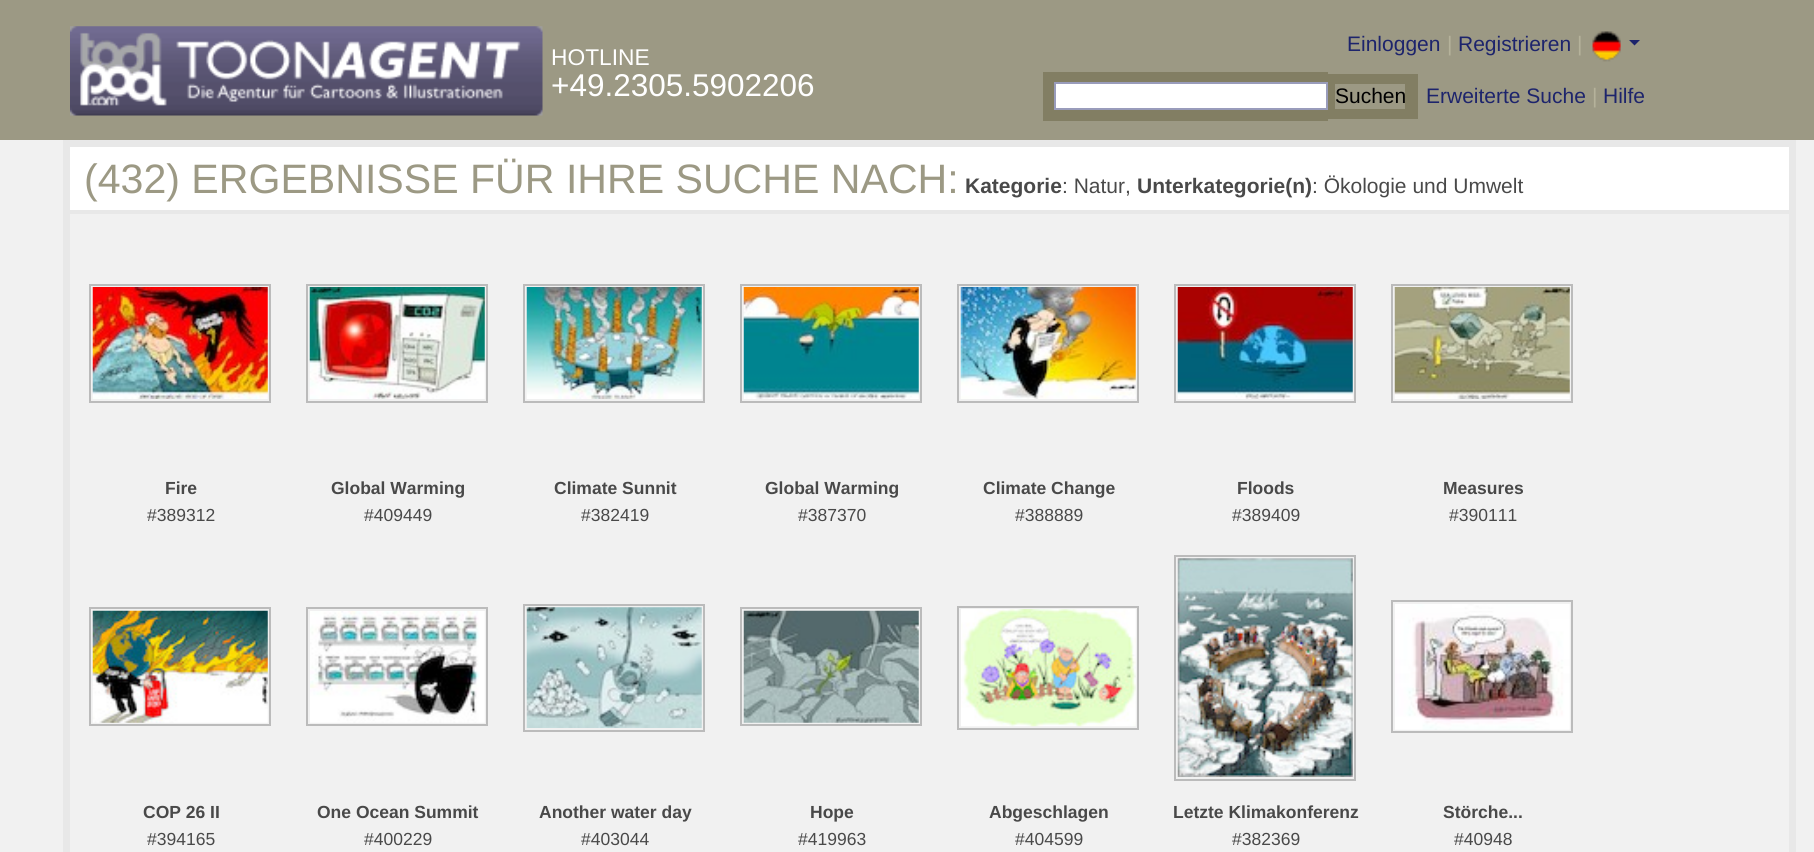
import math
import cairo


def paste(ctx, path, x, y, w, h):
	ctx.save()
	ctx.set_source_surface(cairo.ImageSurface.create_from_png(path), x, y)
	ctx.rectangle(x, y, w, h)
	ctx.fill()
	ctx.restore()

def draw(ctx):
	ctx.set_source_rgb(0.945, 0.945, 0.945)
	ctx.paint()
	ctx.set_source_rgb(0.612, 0.6, 0.518)
	ctx.rectangle(0, 0, 1814, 140)
	ctx.fill()
	ctx.select_font_face('Liberation Sans')
	ctx.set_font_size(21)
	ctx.set_source_rgb(0.114, 0.141, 0.424)
	ctx.move_to(1347, 51)
	ctx.show_text('Einloggen')
	ctx.set_source_rgb(0.71, 0.698, 0.608)
	ctx.move_to(1447, 51)
	ctx.show_text('|')
	ctx.set_source_rgb(0.114, 0.141, 0.424)
	ctx.move_to(1458, 51)
	ctx.show_text('Registrieren')
	ctx.set_source_rgb(0.71, 0.698, 0.608)
	ctx.move_to(1577, 51)
	ctx.show_text('|')
	paste(ctx, 'media/1.png', 1592, 31, 29, 31)
	ctx.set_source_rgb(0.114, 0.141, 0.424)
	ctx.new_path()
	ctx.move_to(1629, 40)
	ctx.line_to(1640, 40)
	ctx.line_to(1634.5, 45.5)
	ctx.close_path()
	ctx.fill()
	paste(ctx, 'media/2.png', 70, 26, 473, 90)
	ctx.set_font_size(22.75)
	ctx.set_source_rgb(1, 1, 1)
	ctx.move_to(551, 65)
	ctx.show_text('HOTLINE')
	ctx.set_font_size(31.5)
	ctx.move_to(551, 96)
	ctx.show_text('+49.2305.5902206')
	ctx.set_source_rgb(0.51, 0.494, 0.388)
	ctx.rectangle(1043, 72, 285, 49)
	ctx.fill()
	ctx.rectangle(1328, 74, 90, 45)
	ctx.fill()
	ctx.set_source_rgb(1, 1, 1)
	ctx.rectangle(1055, 83, 272, 26)
	ctx.fill_preserve()
	ctx.set_source_rgb(0.6, 0.612, 0.733)
	ctx.stroke()
	ctx.set_source_rgb(0.612, 0.6, 0.518)
	ctx.rectangle(1335, 84, 70, 25)
	ctx.fill()
	ctx.set_font_size(21)
	ctx.set_source_rgb(0, 0, 0)
	ctx.move_to(1335, 103)
	ctx.show_text('Suchen')
	ctx.set_source_rgb(0.114, 0.141, 0.424)
	ctx.move_to(1426, 103)
	ctx.show_text('Erweiterte Suche')
	ctx.set_source_rgb(0.71, 0.698, 0.608)
	ctx.move_to(1592, 103)
	ctx.show_text('|')
	ctx.set_source_rgb(0.114, 0.141, 0.424)
	ctx.move_to(1603, 103)
	ctx.show_text('Hilfe')
	ctx.rectangle(66.5, 143.5, 1726, 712)
	ctx.set_source_rgb(0.91, 0.91, 0.91)
	ctx.set_line_width(7)
	ctx.stroke()
	ctx.set_source_rgb(1, 1, 1)
	ctx.rectangle(70, 147, 1719, 63)
	ctx.fill()
	ctx.set_font_size(41.1)
	ctx.set_source_rgb(0.612, 0.6, 0.518)
	ctx.move_to(84, 193)
	ctx.show_text('(432) ERGEBNISSE FÜR IHRE SUCHE NACH:')
	ctx.select_font_face('Liberation Sans', cairo.FONT_SLANT_NORMAL, cairo.FONT_WEIGHT_BOLD)
	ctx.set_font_size(21)
	ctx.set_source_rgb(0.286, 0.286, 0.286)
	ctx.move_to(965, 193)
	ctx.show_text('Kategorie')
	ctx.select_font_face('Liberation Sans')
	ctx.move_to(1062, 193)
	ctx.show_text(': Natur,')
	ctx.select_font_face('Liberation Sans', cairo.FONT_SLANT_NORMAL, cairo.FONT_WEIGHT_BOLD)
	ctx.move_to(1137, 193)
	ctx.show_text('Unterkategorie(n)')
	ctx.select_font_face('Liberation Sans')
	ctx.move_to(1312, 193)
	ctx.show_text(': Ökologie und Umwelt')
	ctx.set_source_rgb(0.91, 0.91, 0.91)
	ctx.rectangle(70, 210, 1719, 4)
	ctx.fill()
	ctx.rectangle(90, 285, 180, 117)
	ctx.set_source_rgb(0.733, 0.733, 0.733)
	ctx.set_line_width(2)
	ctx.stroke()
	paste(ctx, 'media/3.png', 92, 287, 176, 112)
	ctx.select_font_face('Liberation Sans', cairo.FONT_SLANT_NORMAL, cairo.FONT_WEIGHT_BOLD)
	ctx.set_font_size(17.5)
	ctx.set_source_rgb(0.286, 0.286, 0.286)
	ctx.move_to(165, 494)
	ctx.show_text('Fire')
	ctx.select_font_face('Liberation Sans')
	ctx.move_to(147, 521)
	ctx.show_text('#389312')
	ctx.rectangle(307, 285, 180, 117)
	ctx.set_source_rgb(0.733, 0.733, 0.733)
	ctx.stroke()
	paste(ctx, 'media/4.png', 309, 287, 176, 112)
	ctx.select_font_face('Liberation Sans', cairo.FONT_SLANT_NORMAL, cairo.FONT_WEIGHT_BOLD)
	ctx.set_source_rgb(0.286, 0.286, 0.286)
	ctx.move_to(331, 494)
	ctx.show_text('Global Warming')
	ctx.select_font_face('Liberation Sans')
	ctx.move_to(364, 521)
	ctx.show_text('#409449')
	ctx.rectangle(524, 285, 180, 117)
	ctx.set_source_rgb(0.733, 0.733, 0.733)
	ctx.stroke()
	paste(ctx, 'media/5.png', 526, 287, 176, 112)
	ctx.select_font_face('Liberation Sans', cairo.FONT_SLANT_NORMAL, cairo.FONT_WEIGHT_BOLD)
	ctx.set_source_rgb(0.286, 0.286, 0.286)
	ctx.move_to(554, 494)
	ctx.show_text('Climate Sunnit')
	ctx.select_font_face('Liberation Sans')
	ctx.move_to(581, 521)
	ctx.show_text('#382419')
	ctx.rectangle(741, 285, 180, 117)
	ctx.set_source_rgb(0.733, 0.733, 0.733)
	ctx.stroke()
	paste(ctx, 'media/6.png', 743, 287, 176, 112)
	ctx.select_font_face('Liberation Sans', cairo.FONT_SLANT_NORMAL, cairo.FONT_WEIGHT_BOLD)
	ctx.set_source_rgb(0.286, 0.286, 0.286)
	ctx.move_to(765, 494)
	ctx.show_text('Global Warming')
	ctx.select_font_face('Liberation Sans')
	ctx.move_to(798, 521)
	ctx.show_text('#387370')
	ctx.rectangle(958, 285, 180, 117)
	ctx.set_source_rgb(0.733, 0.733, 0.733)
	ctx.stroke()
	paste(ctx, 'media/7.png', 960, 287, 176, 112)
	ctx.select_font_face('Liberation Sans', cairo.FONT_SLANT_NORMAL, cairo.FONT_WEIGHT_BOLD)
	ctx.set_source_rgb(0.286, 0.286, 0.286)
	ctx.move_to(983, 494)
	ctx.show_text('Climate Change')
	ctx.select_font_face('Liberation Sans')
	ctx.move_to(1015, 521)
	ctx.show_text('#388889')
	ctx.rectangle(1175, 285, 180, 117)
	ctx.set_source_rgb(0.733, 0.733, 0.733)
	ctx.stroke()
	paste(ctx, 'media/8.png', 1177, 287, 176, 112)
	ctx.select_font_face('Liberation Sans', cairo.FONT_SLANT_NORMAL, cairo.FONT_WEIGHT_BOLD)
	ctx.set_source_rgb(0.286, 0.286, 0.286)
	ctx.move_to(1237, 494)
	ctx.show_text('Floods')
	ctx.select_font_face('Liberation Sans')
	ctx.move_to(1232, 521)
	ctx.show_text('#389409')
	ctx.rectangle(1392, 285, 180, 117)
	ctx.set_source_rgb(0.733, 0.733, 0.733)
	ctx.stroke()
	paste(ctx, 'media/9.png', 1394, 287, 176, 112)
	ctx.select_font_face('Liberation Sans', cairo.FONT_SLANT_NORMAL, cairo.FONT_WEIGHT_BOLD)
	ctx.set_source_rgb(0.286, 0.286, 0.286)
	ctx.move_to(1443, 494)
	ctx.show_text('Measures')
	ctx.select_font_face('Liberation Sans')
	ctx.move_to(1449, 521)
	ctx.show_text('#390111')
	ctx.rectangle(90, 608, 180, 117)
	ctx.set_source_rgb(0.733, 0.733, 0.733)
	ctx.stroke()
	paste(ctx, 'media/10.png', 92, 610, 176, 113)
	ctx.select_font_face('Liberation Sans', cairo.FONT_SLANT_NORMAL, cairo.FONT_WEIGHT_BOLD)
	ctx.set_source_rgb(0.286, 0.286, 0.286)
	ctx.move_to(143, 818)
	ctx.show_text('COP 26 II')
	ctx.select_font_face('Liberation Sans')
	ctx.move_to(147, 845)
	ctx.show_text('#394165')
	ctx.rectangle(307, 608, 180, 117)
	ctx.set_source_rgb(0.733, 0.733, 0.733)
	ctx.stroke()
	paste(ctx, 'media/11.png', 310, 611, 175, 112)
	ctx.select_font_face('Liberation Sans', cairo.FONT_SLANT_NORMAL, cairo.FONT_WEIGHT_BOLD)
	ctx.set_source_rgb(0.286, 0.286, 0.286)
	ctx.move_to(317, 818)
	ctx.show_text('One Ocean Summit')
	ctx.select_font_face('Liberation Sans')
	ctx.move_to(364, 845)
	ctx.show_text('#400229')
	ctx.rectangle(524, 605, 180, 126)
	ctx.set_source_rgb(0.733, 0.733, 0.733)
	ctx.stroke()
	paste(ctx, 'media/12.png', 526, 607, 176, 121)
	ctx.select_font_face('Liberation Sans', cairo.FONT_SLANT_NORMAL, cairo.FONT_WEIGHT_BOLD)
	ctx.set_source_rgb(0.286, 0.286, 0.286)
	ctx.move_to(539, 818)
	ctx.show_text('Another water day')
	ctx.select_font_face('Liberation Sans')
	ctx.move_to(581, 845)
	ctx.show_text('#403044')
	ctx.rectangle(741, 608, 180, 117)
	ctx.set_source_rgb(0.733, 0.733, 0.733)
	ctx.stroke()
	paste(ctx, 'media/13.png', 743, 610, 176, 113)
	ctx.select_font_face('Liberation Sans', cairo.FONT_SLANT_NORMAL, cairo.FONT_WEIGHT_BOLD)
	ctx.set_source_rgb(0.286, 0.286, 0.286)
	ctx.move_to(810, 818)
	ctx.show_text('Hope')
	ctx.select_font_face('Liberation Sans')
	ctx.move_to(798, 845)
	ctx.show_text('#419963')
	ctx.rectangle(958, 607, 180, 122)
	ctx.set_source_rgb(0.733, 0.733, 0.733)
	ctx.stroke()
	paste(ctx, 'media/14.png', 961, 609, 175, 118)
	ctx.select_font_face('Liberation Sans', cairo.FONT_SLANT_NORMAL, cairo.FONT_WEIGHT_BOLD)
	ctx.set_source_rgb(0.286, 0.286, 0.286)
	ctx.move_to(989, 818)
	ctx.show_text('Abgeschlagen')
	ctx.select_font_face('Liberation Sans')
	ctx.move_to(1015, 845)
	ctx.show_text('#404599')
	ctx.rectangle(1175, 556, 180, 224)
	ctx.set_source_rgb(0.733, 0.733, 0.733)
	ctx.stroke()
	paste(ctx, 'media/15.png', 1177, 558, 176, 219)
	ctx.select_font_face('Liberation Sans', cairo.FONT_SLANT_NORMAL, cairo.FONT_WEIGHT_BOLD)
	ctx.set_source_rgb(0.286, 0.286, 0.286)
	ctx.move_to(1173, 818)
	ctx.show_text('Letzte Klimakonferenz')
	ctx.select_font_face('Liberation Sans')
	ctx.move_to(1232, 845)
	ctx.show_text('#382369')
	ctx.rectangle(1392, 601, 180, 131)
	ctx.set_source_rgb(0.733, 0.733, 0.733)
	ctx.stroke()
	paste(ctx, 'media/16.png', 1395, 604, 175, 126)
	ctx.select_font_face('Liberation Sans', cairo.FONT_SLANT_NORMAL, cairo.FONT_WEIGHT_BOLD)
	ctx.set_source_rgb(0.286, 0.286, 0.286)
	ctx.move_to(1443, 818)
	ctx.show_text('Störche...')
	ctx.select_font_face('Liberation Sans')
	ctx.move_to(1454, 845)
	ctx.show_text('#40948')


surface = cairo.ImageSurface(cairo.FORMAT_RGB24, 1814, 852)
ctx = cairo.Context(surface)
options = cairo.FontOptions()
options.set_hint_metrics(cairo.HINT_METRICS_OFF)
options.set_hint_style(cairo.HINT_STYLE_NONE)
ctx.set_font_options(options)
ctx.set_miter_limit(4)
draw(ctx)
surface.write_to_png('image.png')
